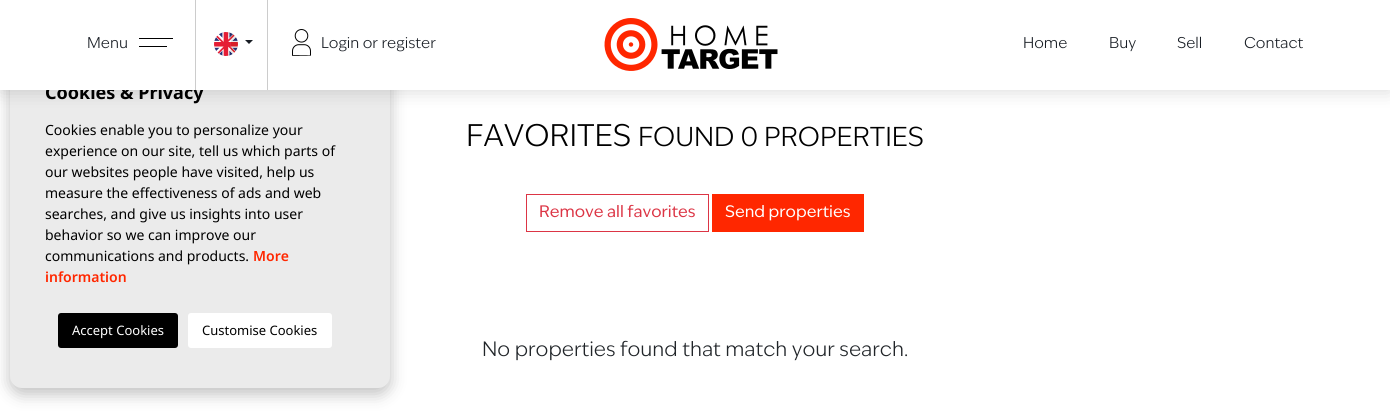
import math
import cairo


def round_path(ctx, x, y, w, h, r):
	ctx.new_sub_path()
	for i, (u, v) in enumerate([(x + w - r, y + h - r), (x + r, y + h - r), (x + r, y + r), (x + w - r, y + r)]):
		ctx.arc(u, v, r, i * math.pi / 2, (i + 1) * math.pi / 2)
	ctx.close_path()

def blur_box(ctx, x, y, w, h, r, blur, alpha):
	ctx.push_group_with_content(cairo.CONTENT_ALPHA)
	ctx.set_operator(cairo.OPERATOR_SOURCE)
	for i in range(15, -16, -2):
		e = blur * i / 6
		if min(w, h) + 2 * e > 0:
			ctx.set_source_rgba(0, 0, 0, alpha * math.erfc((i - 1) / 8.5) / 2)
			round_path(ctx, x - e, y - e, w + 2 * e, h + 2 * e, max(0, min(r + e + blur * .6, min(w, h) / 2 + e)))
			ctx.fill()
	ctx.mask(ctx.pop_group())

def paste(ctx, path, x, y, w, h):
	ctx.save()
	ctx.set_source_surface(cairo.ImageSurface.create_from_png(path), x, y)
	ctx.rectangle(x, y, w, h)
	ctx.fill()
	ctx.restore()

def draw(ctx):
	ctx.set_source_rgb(1, 1, 1)
	ctx.paint()
	ctx.set_source_rgb(0, 0, 0)
	blur_box(ctx, 10, 58, 380, 336, 12, 8, 0.25)
	ctx.set_source_rgb(0.918, 0.918, 0.918)
	round_path(ctx, 10, 52, 380, 336, 12)
	ctx.fill()
	ctx.set_source_rgb(0, 0, 0)
	blur_box(ctx, 0, 0, 1390, 90, 0, 10, 0.16)
	ctx.select_font_face('Noto Sans', cairo.FONT_SLANT_NORMAL, cairo.FONT_WEIGHT_BOLD)
	ctx.set_font_size(18)
	ctx.set_source_rgb(0, 0, 0)
	ctx.move_to(45, 99)
	ctx.show_text('Cookies & Privacy')
	ctx.set_source_rgb(1, 1, 1)
	ctx.rectangle(0, 0, 1390, 90)
	ctx.fill()
	ctx.set_source_rgb(0.8, 0.8, 0.8)
	ctx.rectangle(195, 0, 1, 90)
	ctx.fill()
	ctx.select_font_face('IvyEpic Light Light')
	ctx.set_font_size(15)
	ctx.set_source_rgb(0.094, 0.114, 0.141)
	ctx.move_to(87, 48)
	ctx.show_text('Menu')
	ctx.set_source_rgb(0, 0, 0)
	ctx.rectangle(139, 38, 34, 1)
	ctx.rectangle(139, 46, 28, 1)
	ctx.fill()
	ctx.set_source_rgb(0.8, 0.8, 0.8)
	ctx.rectangle(267, 0, 1, 90)
	ctx.fill()
	paste(ctx, 'media/1.png', 214, 32, 24, 24)
	ctx.set_source_rgb(0.094, 0.114, 0.141)
	ctx.new_path()
	ctx.move_to(245, 40)
	ctx.line_to(253, 40)
	ctx.line_to(249, 44)
	ctx.close_path()
	ctx.fill()
	paste(ctx, 'media/2.png', 292, 29, 19, 27)
	ctx.move_to(321, 48)
	ctx.show_text('Login or register')
	paste(ctx, 'media/3.png', 604, 18, 174, 53)
	for x, y, s in [
		(1023, 48, 'Home'),
		(1109, 48, 'Buy'),
		(1177, 48, 'Sell'),
		(1244, 48, 'Contact'),
	]:
		ctx.move_to(x, y)
		ctx.show_text(s)
	ctx.select_font_face('Noto Sans')
	ctx.set_font_size(14)
	ctx.set_source_rgb(0, 0, 0)
	for x, y, s in [
		(45, 135, 'Cookies enable you to personalize your'),
		(45, 156, 'experience on our site, tell us which parts of'),
		(45, 177, 'our websites people have visited, help us'),
		(45, 198, 'measure the effectiveness of ads and web'),
		(45, 219, 'searches, and give us insights into user'),
		(45, 240, 'behavior so we can improve our'),
		(45, 261, 'communications and products.'),
	]:
		ctx.move_to(x, y)
		ctx.show_text(s)
	ctx.select_font_face('Noto Sans SemiBold')
	ctx.set_source_rgb(1, 0.153, 0)
	ctx.move_to(253, 261)
	ctx.show_text('More')
	ctx.move_to(45, 282)
	ctx.show_text('information')
	ctx.set_source_rgb(0, 0, 0)
	round_path(ctx, 58, 313, 120, 35, 3)
	ctx.fill()
	ctx.select_font_face('Noto Sans')
	ctx.set_font_size(13)
	ctx.set_source_rgb(1, 1, 1)
	ctx.move_to(72, 335)
	ctx.show_text('Accept Cookies')
	round_path(ctx, 188, 313, 144, 35, 3)
	ctx.fill()
	ctx.set_source_rgb(0, 0, 0)
	ctx.move_to(202, 335)
	ctx.show_text('Customise Cookies')
	ctx.select_font_face('IvyEpic Light Light')
	ctx.set_font_size(30)
	ctx.move_to(466, 146)
	ctx.show_text('FAVORITES')
	ctx.set_font_size(26.25)
	ctx.move_to(638, 146)
	ctx.show_text('FOUND 0 PROPERTIES')
	ctx.rectangle(526.5, 194.5, 182, 37)
	ctx.set_source_rgb(0.863, 0.208, 0.271)
	ctx.set_line_width(1)
	ctx.stroke()
	ctx.select_font_face('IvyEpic')
	ctx.set_font_size(16)
	ctx.move_to(539, 217)
	ctx.show_text('Remove all favorites')
	ctx.set_source_rgb(1, 0.153, 0)
	ctx.rectangle(712, 194, 152, 38)
	ctx.fill()
	ctx.set_source_rgb(1, 1, 1)
	ctx.move_to(725, 217)
	ctx.show_text('Send properties')
	ctx.select_font_face('IvyEpic Light Light')
	ctx.set_font_size(20)
	ctx.set_source_rgb(0.129, 0.145, 0.161)
	ctx.move_to(482, 356)
	ctx.show_text('No properties found that match your search.')


surface = cairo.ImageSurface(cairo.FORMAT_RGB24, 1390, 418)
ctx = cairo.Context(surface)
options = cairo.FontOptions()
options.set_hint_metrics(cairo.HINT_METRICS_OFF)
options.set_hint_style(cairo.HINT_STYLE_NONE)
ctx.set_font_options(options)
ctx.set_miter_limit(4)
draw(ctx)
surface.write_to_png('image.png')
